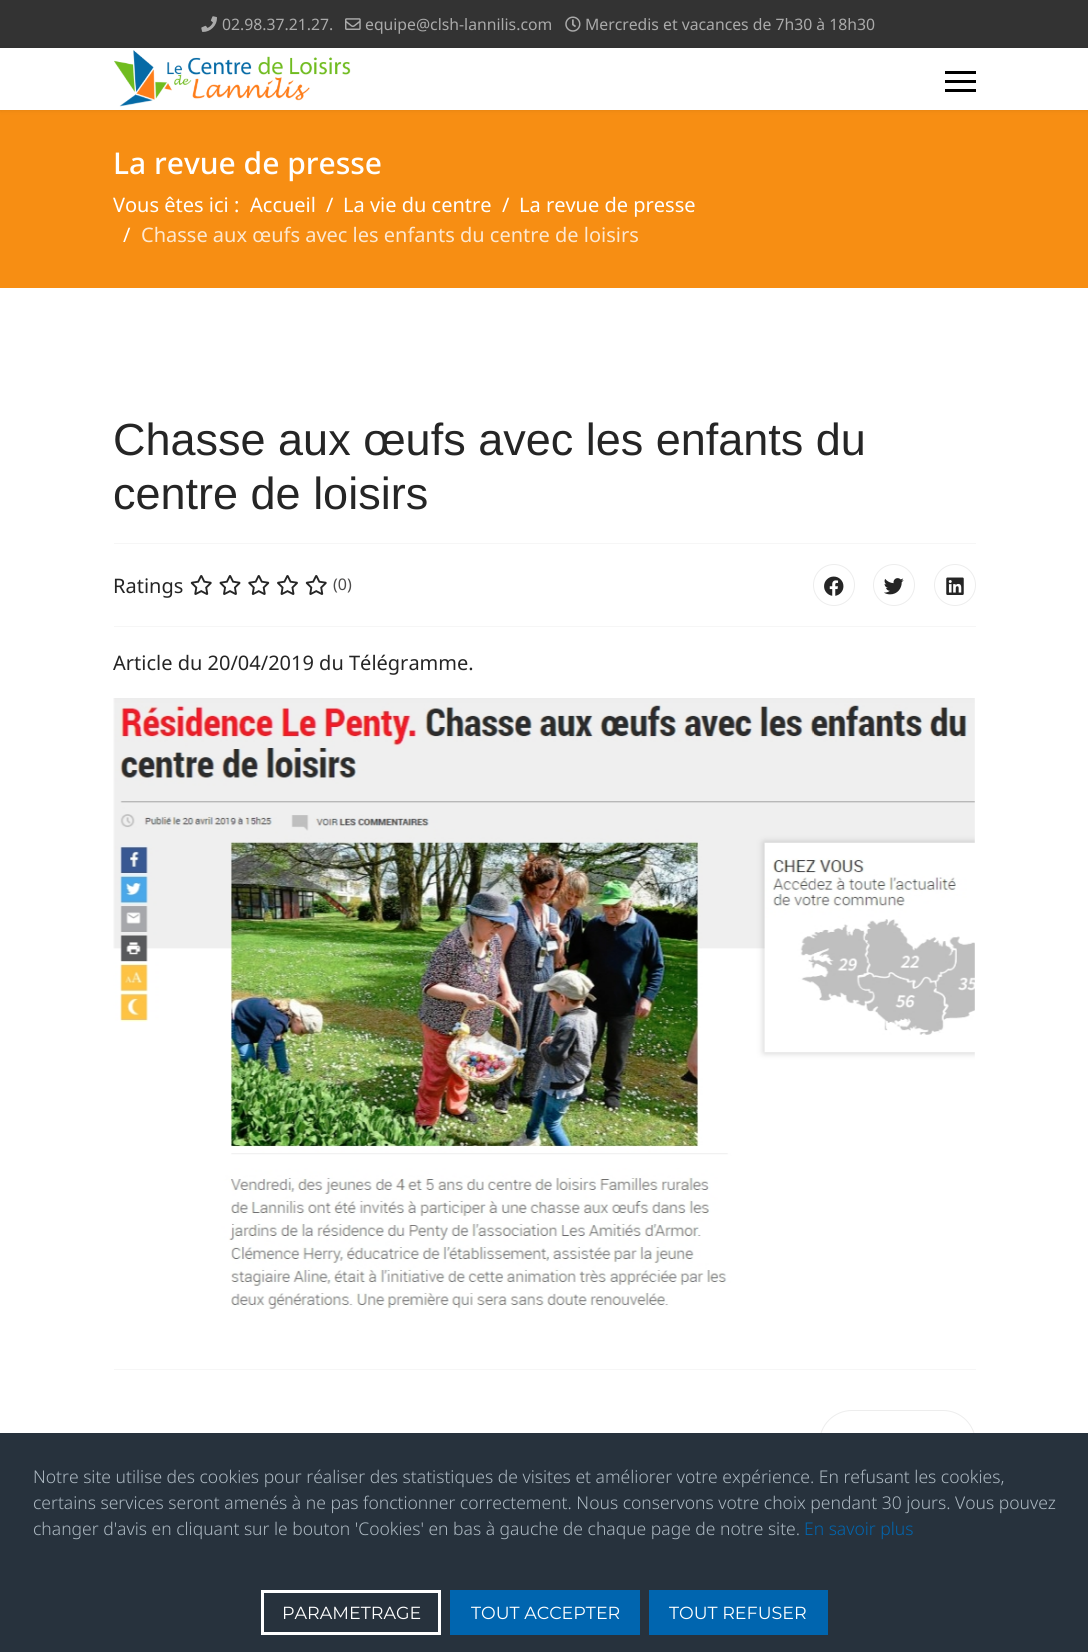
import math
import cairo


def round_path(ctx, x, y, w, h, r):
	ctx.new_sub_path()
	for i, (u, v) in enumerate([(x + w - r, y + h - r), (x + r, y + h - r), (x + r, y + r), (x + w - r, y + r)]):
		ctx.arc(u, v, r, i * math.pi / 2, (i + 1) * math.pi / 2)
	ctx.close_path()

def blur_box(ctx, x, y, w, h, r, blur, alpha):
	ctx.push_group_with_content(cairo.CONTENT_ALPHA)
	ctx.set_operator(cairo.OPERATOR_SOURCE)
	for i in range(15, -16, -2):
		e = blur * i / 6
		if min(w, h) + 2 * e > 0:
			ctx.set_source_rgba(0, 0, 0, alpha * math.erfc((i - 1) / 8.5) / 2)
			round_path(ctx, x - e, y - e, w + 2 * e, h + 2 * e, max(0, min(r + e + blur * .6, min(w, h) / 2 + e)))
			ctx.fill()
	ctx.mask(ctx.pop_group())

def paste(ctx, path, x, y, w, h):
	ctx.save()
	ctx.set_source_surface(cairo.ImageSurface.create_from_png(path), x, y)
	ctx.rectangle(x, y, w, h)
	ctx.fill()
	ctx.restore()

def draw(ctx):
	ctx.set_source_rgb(1, 1, 1)
	ctx.paint()
	ctx.set_source_rgb(0.2, 0.2, 0.2)
	ctx.rectangle(0, 0, 1088, 48)
	ctx.fill()
	paste(ctx, 'media/1.png', 201, 16, 16, 16)
	ctx.select_font_face('Noto Sans')
	ctx.set_font_size(15.75)
	ctx.set_source_rgb(0.667, 0.667, 0.667)
	ctx.move_to(222, 30)
	ctx.show_text('02.98.37.21.27.')
	paste(ctx, 'media/2.png', 345, 18, 16, 12)
	ctx.move_to(365, 30)
	ctx.show_text('equipe@clsh-lannilis.com')
	paste(ctx, 'media/3.png', 565, 16, 16, 16)
	ctx.move_to(585, 30)
	ctx.show_text('Mercredis et vacances de 7h30 à 18h30')
	ctx.set_source_rgb(0.965, 0.557, 0.075)
	ctx.rectangle(0, 110, 1088, 178)
	ctx.fill()
	ctx.save()
	ctx.set_fill_rule(cairo.FILL_RULE_EVEN_ODD)
	ctx.new_path()
	ctx.move_to(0, 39)
	ctx.line_to(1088, 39)
	ctx.line_to(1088, 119)
	ctx.line_to(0, 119)
	ctx.close_path()
	ctx.move_to(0, 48)
	ctx.line_to(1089, 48)
	ctx.line_to(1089, 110)
	ctx.line_to(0, 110)
	ctx.close_path()
	ctx.clip()
	ctx.set_source_rgb(0, 0, 0)
	blur_box(ctx, 0, 48, 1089, 62, 0, 2.5, 0.1)
	ctx.restore()
	paste(ctx, 'media/4.png', 114, 50, 237, 57)
	ctx.set_source_rgb(0, 0, 0)
	ctx.rectangle(945, 71, 31, 3)
	ctx.rectangle(945, 80, 31, 3)
	ctx.rectangle(945, 89, 31, 3)
	ctx.fill()
	ctx.select_font_face('Noto Sans Medium')
	ctx.set_font_size(30)
	ctx.set_source_rgb(1, 1, 1)
	ctx.move_to(113, 174)
	ctx.show_text('La revue de presse')
	ctx.select_font_face('Noto Sans')
	ctx.set_font_size(20)
	for x, y, s in [
		(113, 212, 'Vous êtes ici :'),
		(250, 212, 'Accueil'),
		(326, 212, '/'),
		(343, 212, 'La vie du centre'),
		(502, 212, '/'),
		(519, 212, 'La revue de presse'),
		(123, 242, '/'),
	]:
		ctx.move_to(x, y)
		ctx.show_text(s)
	ctx.set_source_rgb(0.992, 0.91, 0.816)
	ctx.move_to(141, 242)
	ctx.show_text('Chasse aux œufs avec les enfants du centre de loisirs')
	ctx.select_font_face('Liberation Sans')
	ctx.set_font_size(45)
	ctx.set_source_rgb(0.145, 0.145, 0.145)
	ctx.move_to(113, 455)
	ctx.show_text('Chasse aux œufs avec les enfants du')
	ctx.move_to(113, 509)
	ctx.show_text('centre de loisirs')
	ctx.set_source_rgb(0.961, 0.961, 0.961)
	ctx.rectangle(114, 543, 862, 1)
	ctx.fill()
	ctx.rectangle(114, 626, 862, 1)
	ctx.fill()
	ctx.select_font_face('Noto Sans')
	ctx.set_font_size(20)
	ctx.set_source_rgb(0.145, 0.145, 0.145)
	ctx.move_to(113, 593)
	ctx.show_text('Ratings')
	paste(ctx, 'media/5.png', 190, 575, 22, 20)
	paste(ctx, 'media/6.png', 219, 575, 22, 20)
	paste(ctx, 'media/7.png', 248, 575, 22, 20)
	paste(ctx, 'media/8.png', 277, 575, 21, 20)
	paste(ctx, 'media/5.png', 305, 575, 22, 20)
	ctx.set_font_size(16)
	ctx.set_source_rgb(0.298, 0.294, 0.294)
	ctx.move_to(333, 590)
	ctx.show_text('(0)')
	ctx.new_path()
	ctx.arc(834, 585, 20.5, 0, 2 * math.pi)
	ctx.set_source_rgb(0.929, 0.929, 0.929)
	ctx.set_line_width(1)
	ctx.stroke()
	paste(ctx, 'media/9.png', 824, 576, 20, 20)
	ctx.arc(894, 585, 20.5, 0, 2 * math.pi)
	ctx.stroke()
	paste(ctx, 'media/10.png', 884, 578, 20, 17)
	ctx.arc(955, 585, 20.5, 0, 2 * math.pi)
	ctx.stroke()
	paste(ctx, 'media/11.png', 946, 577, 18, 18)
	ctx.set_font_size(20)
	ctx.set_source_rgb(0.145, 0.145, 0.145)
	ctx.move_to(113, 670)
	ctx.show_text('Article du 20/04/2019 du Télégramme.')
	paste(ctx, 'media/12.png', 113, 698, 862, 611)
	ctx.set_source_rgb(0.961, 0.961, 0.961)
	ctx.rectangle(114, 1369, 862, 1)
	ctx.fill()
	round_path(ctx, 819.5, 1410.5, 156, 65, 32.5)
	ctx.set_source_rgb(0.929, 0.929, 0.929)
	ctx.stroke()
	ctx.set_source_rgb(0.153, 0.196, 0.239)
	ctx.rectangle(0, 1433, 1088, 219)
	ctx.fill()
	ctx.select_font_face('Noto Sans Light')
	ctx.set_font_size(17.5)
	ctx.set_source_rgb(0.675, 0.722, 0.757)
	for x, y, s in [
		(33, 1483, 'Notre site utilise des cookies pour réaliser des statistiques de visites et améliorer votre expérience. En refusant les cookies,'),
		(33, 1509, 'certains services seront amenés à ne pas fonctionner correctement. Nous conservons votre choix pendant 30 jours. Vous pouvez'),
		(33, 1535, 'changer d\'avis en cliquant sur le bouton \'Cookies\' en bas à gauche de chaque page de notre site.'),
	]:
		ctx.move_to(x, y)
		ctx.show_text(s)
	ctx.set_source_rgb(0, 0.396, 0.686)
	ctx.move_to(804, 1535)
	ctx.show_text('En savoir plus')
	ctx.rectangle(262.5, 1591.5, 177, 42)
	ctx.set_source_rgb(1, 1, 1)
	ctx.set_line_width(3)
	ctx.stroke()
	ctx.select_font_face('Montserrat')
	ctx.move_to(282, 1619)
	ctx.show_text('PARAMETRAGE')
	ctx.set_source_rgb(0, 0.396, 0.686)
	ctx.rectangle(450, 1590, 190, 45)
	ctx.fill()
	ctx.set_source_rgb(1, 1, 1)
	ctx.move_to(471, 1619)
	ctx.show_text('TOUT ACCEPTER')
	ctx.set_source_rgb(0, 0.396, 0.686)
	ctx.rectangle(649, 1590, 179, 45)
	ctx.fill()
	ctx.set_source_rgb(1, 1, 1)
	ctx.move_to(669, 1619)
	ctx.show_text('TOUT REFUSER')


surface = cairo.ImageSurface(cairo.FORMAT_RGB24, 1088, 1652)
ctx = cairo.Context(surface)
options = cairo.FontOptions()
options.set_hint_metrics(cairo.HINT_METRICS_OFF)
options.set_hint_style(cairo.HINT_STYLE_NONE)
ctx.set_font_options(options)
ctx.set_miter_limit(4)
draw(ctx)
surface.write_to_png('image.png')
